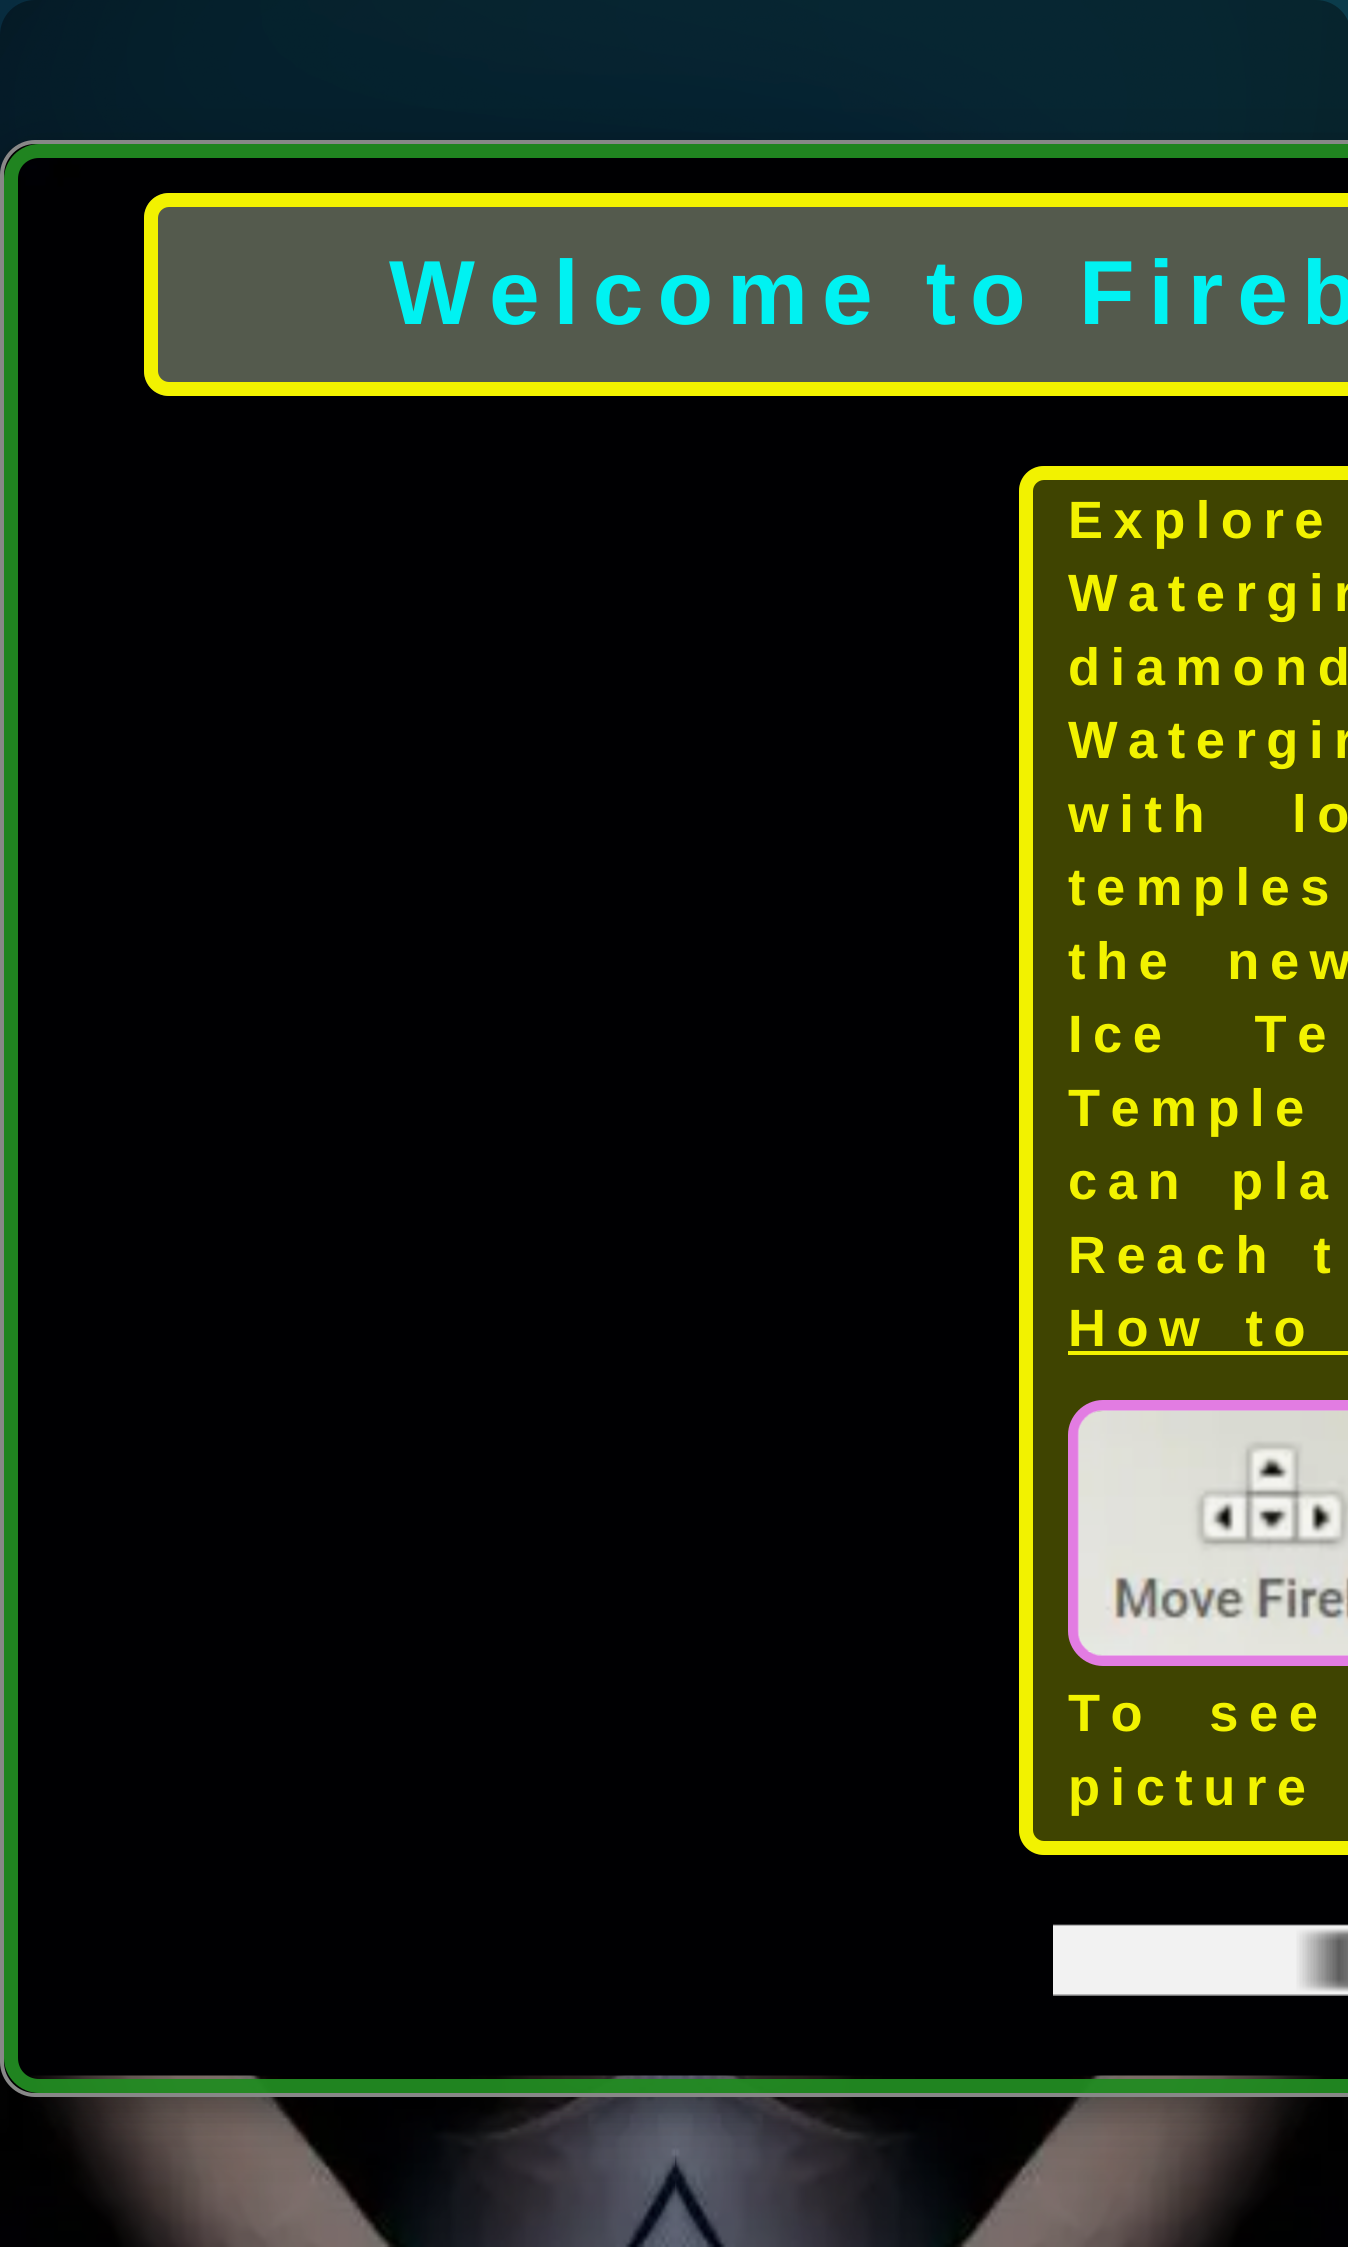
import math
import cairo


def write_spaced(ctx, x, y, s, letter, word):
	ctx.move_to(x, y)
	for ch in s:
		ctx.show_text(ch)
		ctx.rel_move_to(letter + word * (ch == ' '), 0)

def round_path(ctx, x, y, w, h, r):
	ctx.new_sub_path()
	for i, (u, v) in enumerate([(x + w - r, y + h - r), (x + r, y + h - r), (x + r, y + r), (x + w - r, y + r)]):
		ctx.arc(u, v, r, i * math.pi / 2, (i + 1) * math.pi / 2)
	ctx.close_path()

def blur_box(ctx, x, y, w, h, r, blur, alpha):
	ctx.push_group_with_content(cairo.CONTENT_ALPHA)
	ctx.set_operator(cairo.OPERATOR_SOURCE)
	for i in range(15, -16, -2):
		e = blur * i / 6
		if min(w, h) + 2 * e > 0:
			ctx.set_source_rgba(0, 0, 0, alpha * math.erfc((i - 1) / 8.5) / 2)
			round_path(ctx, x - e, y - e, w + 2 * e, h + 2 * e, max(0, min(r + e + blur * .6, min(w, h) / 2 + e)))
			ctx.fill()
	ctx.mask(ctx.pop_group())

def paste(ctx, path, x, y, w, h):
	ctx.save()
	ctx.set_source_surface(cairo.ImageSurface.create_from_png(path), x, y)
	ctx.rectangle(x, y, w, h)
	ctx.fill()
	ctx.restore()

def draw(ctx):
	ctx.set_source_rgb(1, 1, 1)
	ctx.paint()
	paste(ctx, 'media/1.png', 0, 0, 1348, 175)
	paste(ctx, 'media/5.png', 0, 2062, 675, 185)
	paste(ctx, 'media/6.png', 675, 2075, 673, 172)
	ctx.set_source_rgba(0, 0, 0, 0.4)
	round_path(ctx, 0, 0, 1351, 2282, 35)
	ctx.fill()
	ctx.save()
	ctx.set_fill_rule(cairo.FILL_RULE_EVEN_ODD)
	ctx.new_path()
	ctx.move_to(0, 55)
	ctx.line_to(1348, 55)
	ctx.line_to(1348, 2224)
	ctx.line_to(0, 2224)
	ctx.close_path()
	ctx.move_to(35, 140)
	ctx.line_to(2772, 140)
	ctx.curve_to(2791.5, 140, 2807, 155.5, 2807, 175)
	ctx.line_to(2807, 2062)
	ctx.curve_to(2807, 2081.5, 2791.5, 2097, 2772, 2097)
	ctx.line_to(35, 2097)
	ctx.curve_to(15.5, 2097, 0, 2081.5, 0, 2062)
	ctx.line_to(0, 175)
	ctx.curve_to(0, 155.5, 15.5, 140, 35, 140)
	ctx.close_path()
	ctx.clip()
	ctx.set_source_rgb(0, 0, 0)
	blur_box(ctx, 0, 161, 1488, 1957, 35, 35, 0.19)
	ctx.restore()
	ctx.save()
	ctx.set_fill_rule(cairo.FILL_RULE_EVEN_ODD)
	ctx.new_path()
	ctx.move_to(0, 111)
	ctx.line_to(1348, 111)
	ctx.line_to(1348, 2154)
	ctx.line_to(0, 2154)
	ctx.close_path()
	ctx.move_to(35, 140)
	ctx.line_to(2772, 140)
	ctx.curve_to(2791.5, 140, 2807, 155.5, 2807, 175)
	ctx.line_to(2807, 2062)
	ctx.curve_to(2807, 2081.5, 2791.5, 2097, 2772, 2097)
	ctx.line_to(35, 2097)
	ctx.curve_to(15.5, 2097, 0, 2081.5, 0, 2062)
	ctx.line_to(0, 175)
	ctx.curve_to(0, 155.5, 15.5, 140, 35, 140)
	ctx.close_path()
	ctx.clip()
	ctx.set_source_rgb(0, 0, 0)
	blur_box(ctx, 0, 154, 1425, 1957, 35, 14, 0.2)
	ctx.restore()
	paste(ctx, 'media/2.png', 3, 143, 1345, 1933)
	ctx.set_source_rgb(0.533, 0.533, 0.533)
	ctx.new_path()
	ctx.move_to(35, 140)
	ctx.curve_to(16, 140, 0, 156, 0, 175)
	ctx.line_to(0, 2062)
	ctx.curve_to(0, 2081, 16, 2097, 35, 2097)
	ctx.line_to(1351, 2097)
	ctx.line_to(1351, 2093)
	ctx.line_to(35, 2093)
	ctx.curve_to(18, 2093, 4, 2079, 4, 2062)
	ctx.line_to(4, 175)
	ctx.curve_to(4, 158, 18, 144, 35, 144)
	ctx.line_to(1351, 144)
	ctx.line_to(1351, 140)
	ctx.close_path()
	ctx.fill()
	ctx.set_source_rgba(0.133, 0.545, 0.133, 0.95)
	ctx.new_path()
	ctx.move_to(39, 144)
	ctx.curve_to(20, 144, 4, 160, 4, 179)
	ctx.line_to(4, 2058)
	ctx.curve_to(4, 2077, 20, 2093, 39, 2093)
	ctx.line_to(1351, 2093)
	ctx.line_to(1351, 2079)
	ctx.line_to(39, 2079)
	ctx.curve_to(27, 2079, 18, 2070, 18, 2058)
	ctx.line_to(18, 179)
	ctx.curve_to(18, 167, 27, 158, 39, 158)
	ctx.line_to(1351, 158)
	ctx.line_to(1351, 144)
	ctx.close_path()
	ctx.fill()
	ctx.set_source_rgb(0.329, 0.353, 0.302)
	ctx.new_path()
	ctx.move_to(169, 193)
	ctx.line_to(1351, 193)
	ctx.line_to(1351, 396)
	ctx.line_to(169, 396)
	ctx.curve_to(155, 396, 144, 385, 144, 371)
	ctx.line_to(144, 218)
	ctx.curve_to(144, 204, 155, 193, 169, 193)
	ctx.close_path()
	ctx.fill()
	ctx.set_source_rgb(0.949, 0.949, 0)
	ctx.new_path()
	ctx.move_to(169, 193)
	ctx.curve_to(155, 193, 144, 204, 144, 218)
	ctx.line_to(144, 371)
	ctx.curve_to(144, 385, 155, 396, 169, 396)
	ctx.line_to(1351, 396)
	ctx.line_to(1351, 382)
	ctx.line_to(169, 382)
	ctx.curve_to(163, 382, 158, 377, 158, 371)
	ctx.line_to(158, 218)
	ctx.curve_to(158, 212, 163, 207, 169, 207)
	ctx.line_to(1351, 207)
	ctx.line_to(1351, 193)
	ctx.close_path()
	ctx.fill()
	ctx.select_font_face('Liberation Sans', cairo.FONT_SLANT_NORMAL, cairo.FONT_WEIGHT_BOLD)
	ctx.set_font_size(91)
	ctx.set_source_rgb(0, 0.949, 0.949)
	write_spaced(ctx, 389, 324, 'Welcome to Fireb', 14, 0)
	ctx.set_source_rgb(0.247, 0.267, 0.004)
	ctx.new_path()
	ctx.move_to(1044, 466)
	ctx.line_to(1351, 466)
	ctx.line_to(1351, 1855)
	ctx.line_to(1044, 1855)
	ctx.curve_to(1030, 1855, 1019, 1844, 1019, 1830)
	ctx.line_to(1019, 491)
	ctx.curve_to(1019, 477, 1030, 466, 1044, 466)
	ctx.close_path()
	ctx.fill()
	ctx.set_source_rgb(0.949, 0.949, 0)
	ctx.new_path()
	ctx.move_to(1044, 466)
	ctx.curve_to(1030, 466, 1019, 477, 1019, 491)
	ctx.line_to(1019, 1830)
	ctx.curve_to(1019, 1844, 1030, 1855, 1044, 1855)
	ctx.line_to(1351, 1855)
	ctx.line_to(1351, 1841)
	ctx.line_to(1044, 1841)
	ctx.curve_to(1038, 1841, 1033, 1836, 1033, 1830)
	ctx.line_to(1033, 491)
	ctx.curve_to(1033, 485, 1038, 480, 1044, 480)
	ctx.line_to(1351, 480)
	ctx.line_to(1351, 466)
	ctx.close_path()
	ctx.fill()
	ctx.set_font_size(52.5)
	write_spaced(ctx, 1068, 538, 'Explore', 10.5, 21)
	write_spaced(ctx, 1068, 611, 'Watergir', 10.5, 10)
	write_spaced(ctx, 1068, 685, 'diamond', 10.5, 52)
	write_spaced(ctx, 1068, 758, 'Watergir', 10.5, 26)
	write_spaced(ctx, 1068, 832, 'with lo', 10.5, 52)
	write_spaced(ctx, 1068, 905, 'temples', 10.5, 21)
	write_spaced(ctx, 1068, 979, 'the new', 10.5, 24)
	write_spaced(ctx, 1068, 1052, 'Ice Te', 10.5, 57)
	write_spaced(ctx, 1068, 1126, 'Temple', 10.5, 16)
	write_spaced(ctx, 1068, 1199, 'can pla', 10.5, 16)
	write_spaced(ctx, 1068, 1273, 'Reach t', 10.5, 10)
	write_spaced(ctx, 1068, 1346, 'How to', 10.5, 10)
	ctx.rectangle(1068, 1351, 280, 4)
	ctx.fill()
	ctx.set_source_rgb(0.886, 0.486, 0.886)
	ctx.new_path()
	ctx.move_to(1103, 1400)
	ctx.curve_to(1084, 1400, 1068, 1416, 1068, 1435)
	ctx.line_to(1068, 1631)
	ctx.curve_to(1068, 1650, 1084, 1666, 1103, 1666)
	ctx.line_to(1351, 1666)
	ctx.line_to(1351, 1655)
	ctx.line_to(1103, 1655)
	ctx.curve_to(1090, 1655, 1079, 1644, 1079, 1631)
	ctx.line_to(1079, 1435)
	ctx.curve_to(1079, 1422, 1090, 1411, 1103, 1411)
	ctx.line_to(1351, 1411)
	ctx.line_to(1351, 1400)
	ctx.close_path()
	ctx.fill()
	paste(ctx, 'media/3.png', 1077, 1410, 271, 246)
	ctx.set_source_rgb(0.949, 0.949, 0)
	write_spaced(ctx, 1068, 1731, 'To see', 10.5, 31)
	write_spaced(ctx, 1068, 1805, 'picture', 10.5, 10)
	paste(ctx, 'media/4.png', 1053, 1924, 295, 72)


surface = cairo.ImageSurface(cairo.FORMAT_RGB24, 1348, 2247)
ctx = cairo.Context(surface)
options = cairo.FontOptions()
options.set_hint_metrics(cairo.HINT_METRICS_OFF)
options.set_hint_style(cairo.HINT_STYLE_NONE)
ctx.set_font_options(options)
ctx.set_miter_limit(4)
draw(ctx)
surface.write_to_png('image.png')
